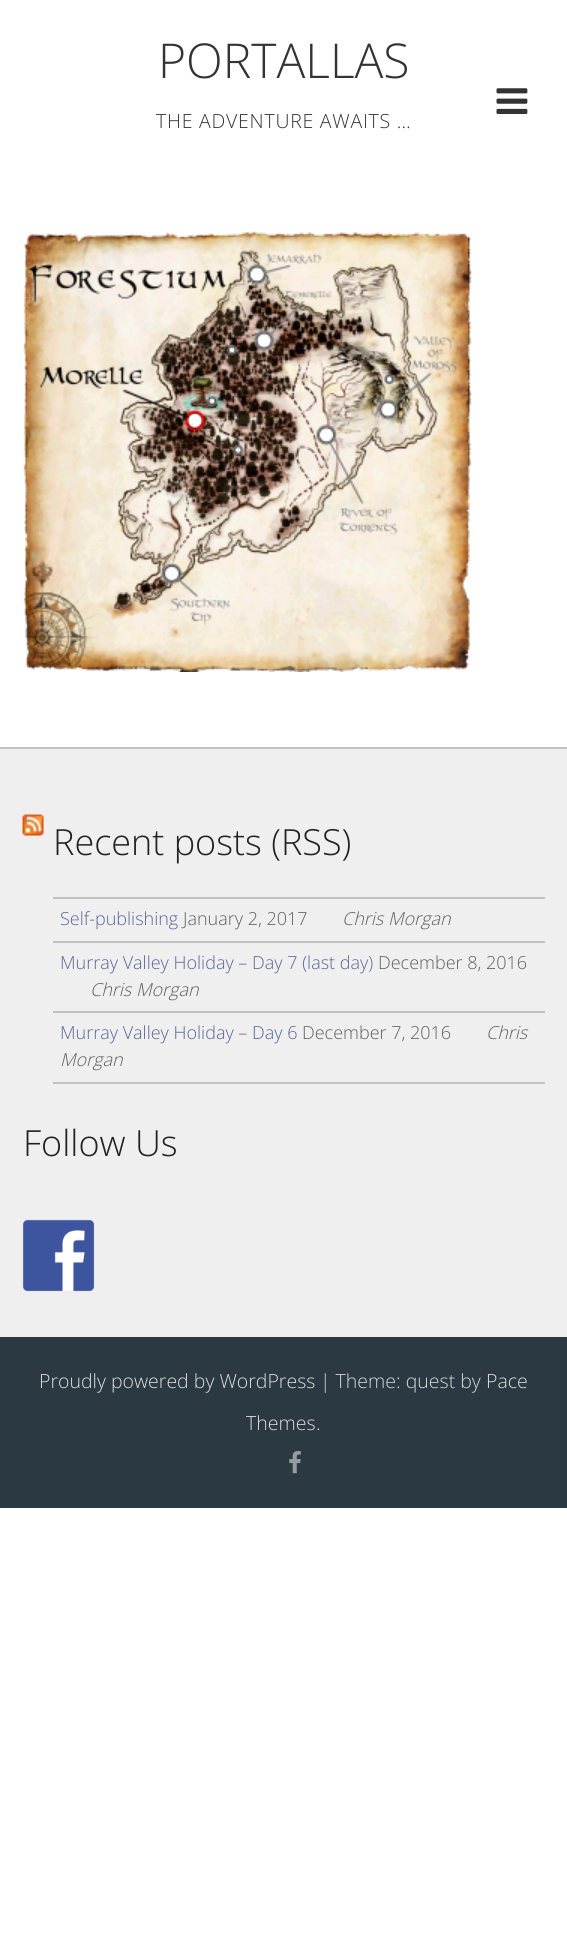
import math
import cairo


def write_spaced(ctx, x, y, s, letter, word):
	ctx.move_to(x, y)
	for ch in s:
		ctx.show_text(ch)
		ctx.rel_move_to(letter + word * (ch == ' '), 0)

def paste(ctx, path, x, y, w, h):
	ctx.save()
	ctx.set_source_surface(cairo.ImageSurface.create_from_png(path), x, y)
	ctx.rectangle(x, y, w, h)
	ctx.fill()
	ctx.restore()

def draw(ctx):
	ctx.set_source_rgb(1, 1, 1)
	ctx.paint()
	ctx.select_font_face('Open Sans Light')
	ctx.set_font_size(48)
	ctx.set_source_rgb(0.2, 0.2, 0.2)
	ctx.move_to(158, 78)
	ctx.show_text('PORTALLAS')
	ctx.set_font_size(19.5)
	write_spaced(ctx, 156, 128, 'THE ADVENTURE AWAITS …', 0.75, 0)
	paste(ctx, 'media/1.png', 496, 88, 32, 26)
	paste(ctx, 'media/2.png', 23, 231, 449, 441)
	ctx.set_source_rgb(0.937, 0.937, 0.937)
	ctx.rectangle(0, 749, 567, 588)
	ctx.fill()
	ctx.set_source_rgb(0.757, 0.757, 0.757)
	ctx.rectangle(0, 747, 567, 2)
	ctx.fill()
	paste(ctx, 'media/3.png', 22, 814, 22, 22)
	ctx.set_font_size(36)
	ctx.set_source_rgb(0.133, 0.133, 0.133)
	ctx.move_to(53, 855)
	ctx.show_text('Recent posts (RSS)')
	ctx.set_source_rgb(0.757, 0.757, 0.757)
	ctx.rectangle(53, 897, 492, 2)
	ctx.fill()
	ctx.set_font_size(18)
	ctx.set_source_rgb(0.353, 0.396, 0.576)
	ctx.move_to(60, 925)
	ctx.show_text('Self-publishing')
	ctx.set_source_rgb(0.373, 0.373, 0.373)
	ctx.move_to(183, 925)
	ctx.show_text('January 2, 2017')
	ctx.select_font_face('Open Sans Light', cairo.FONT_SLANT_ITALIC)
	ctx.move_to(342, 925)
	ctx.show_text('Chris Morgan')
	ctx.set_source_rgb(0.757, 0.757, 0.757)
	ctx.rectangle(53, 941, 492, 2)
	ctx.fill()
	ctx.select_font_face('Open Sans Light')
	ctx.set_source_rgb(0.353, 0.396, 0.576)
	ctx.move_to(60, 969)
	ctx.show_text('Murray Valley Holiday – Day 7 (last day)')
	ctx.set_source_rgb(0.373, 0.373, 0.373)
	ctx.move_to(378, 969)
	ctx.show_text('December 8, 2016')
	ctx.select_font_face('Open Sans Light', cairo.FONT_SLANT_ITALIC)
	ctx.move_to(90, 996)
	ctx.show_text('Chris Morgan')
	ctx.set_source_rgb(0.757, 0.757, 0.757)
	ctx.rectangle(53, 1011, 492, 2)
	ctx.fill()
	ctx.rectangle(53, 1082, 492, 2)
	ctx.fill()
	ctx.select_font_face('Open Sans Light')
	ctx.set_source_rgb(0.353, 0.396, 0.576)
	ctx.move_to(60, 1039)
	ctx.show_text('Murray Valley Holiday – Day 6')
	ctx.set_source_rgb(0.373, 0.373, 0.373)
	ctx.move_to(302, 1039)
	ctx.show_text('December 7, 2016')
	ctx.select_font_face('Open Sans Light', cairo.FONT_SLANT_ITALIC)
	ctx.move_to(486, 1039)
	ctx.show_text('Chris')
	ctx.move_to(60, 1066)
	ctx.show_text('Morgan')
	ctx.select_font_face('Open Sans Light')
	ctx.set_font_size(36)
	ctx.set_source_rgb(0.133, 0.133, 0.133)
	ctx.move_to(23, 1156)
	ctx.show_text('Follow Us')
	paste(ctx, 'media/4.png', 22, 1219, 73, 73)
	ctx.set_source_rgb(0.169, 0.227, 0.259)
	ctx.rectangle(0, 1337, 567, 171)
	ctx.fill()
	ctx.set_font_size(19.5)
	ctx.set_source_rgb(0.867, 0.867, 0.867)
	ctx.move_to(39, 1388)
	ctx.show_text('Proudly powered by WordPress')
	ctx.set_source_rgb(0.831, 0.843, 0.851)
	ctx.move_to(320, 1388)
	ctx.show_text('| Theme: quest by')
	ctx.set_source_rgb(0.867, 0.867, 0.867)
	ctx.move_to(486, 1388)
	ctx.show_text('Pace')
	ctx.move_to(246, 1430)
	ctx.show_text('Themes')
	ctx.set_source_rgb(0.831, 0.843, 0.851)
	ctx.move_to(316, 1430)
	ctx.show_text('.')
	paste(ctx, 'media/5.png', 289, 1450, 12, 24)


surface = cairo.ImageSurface(cairo.FORMAT_RGB24, 567, 1936)
ctx = cairo.Context(surface)
options = cairo.FontOptions()
options.set_hint_metrics(cairo.HINT_METRICS_OFF)
options.set_hint_style(cairo.HINT_STYLE_NONE)
ctx.set_font_options(options)
ctx.set_miter_limit(4)
draw(ctx)
surface.write_to_png('image.png')
